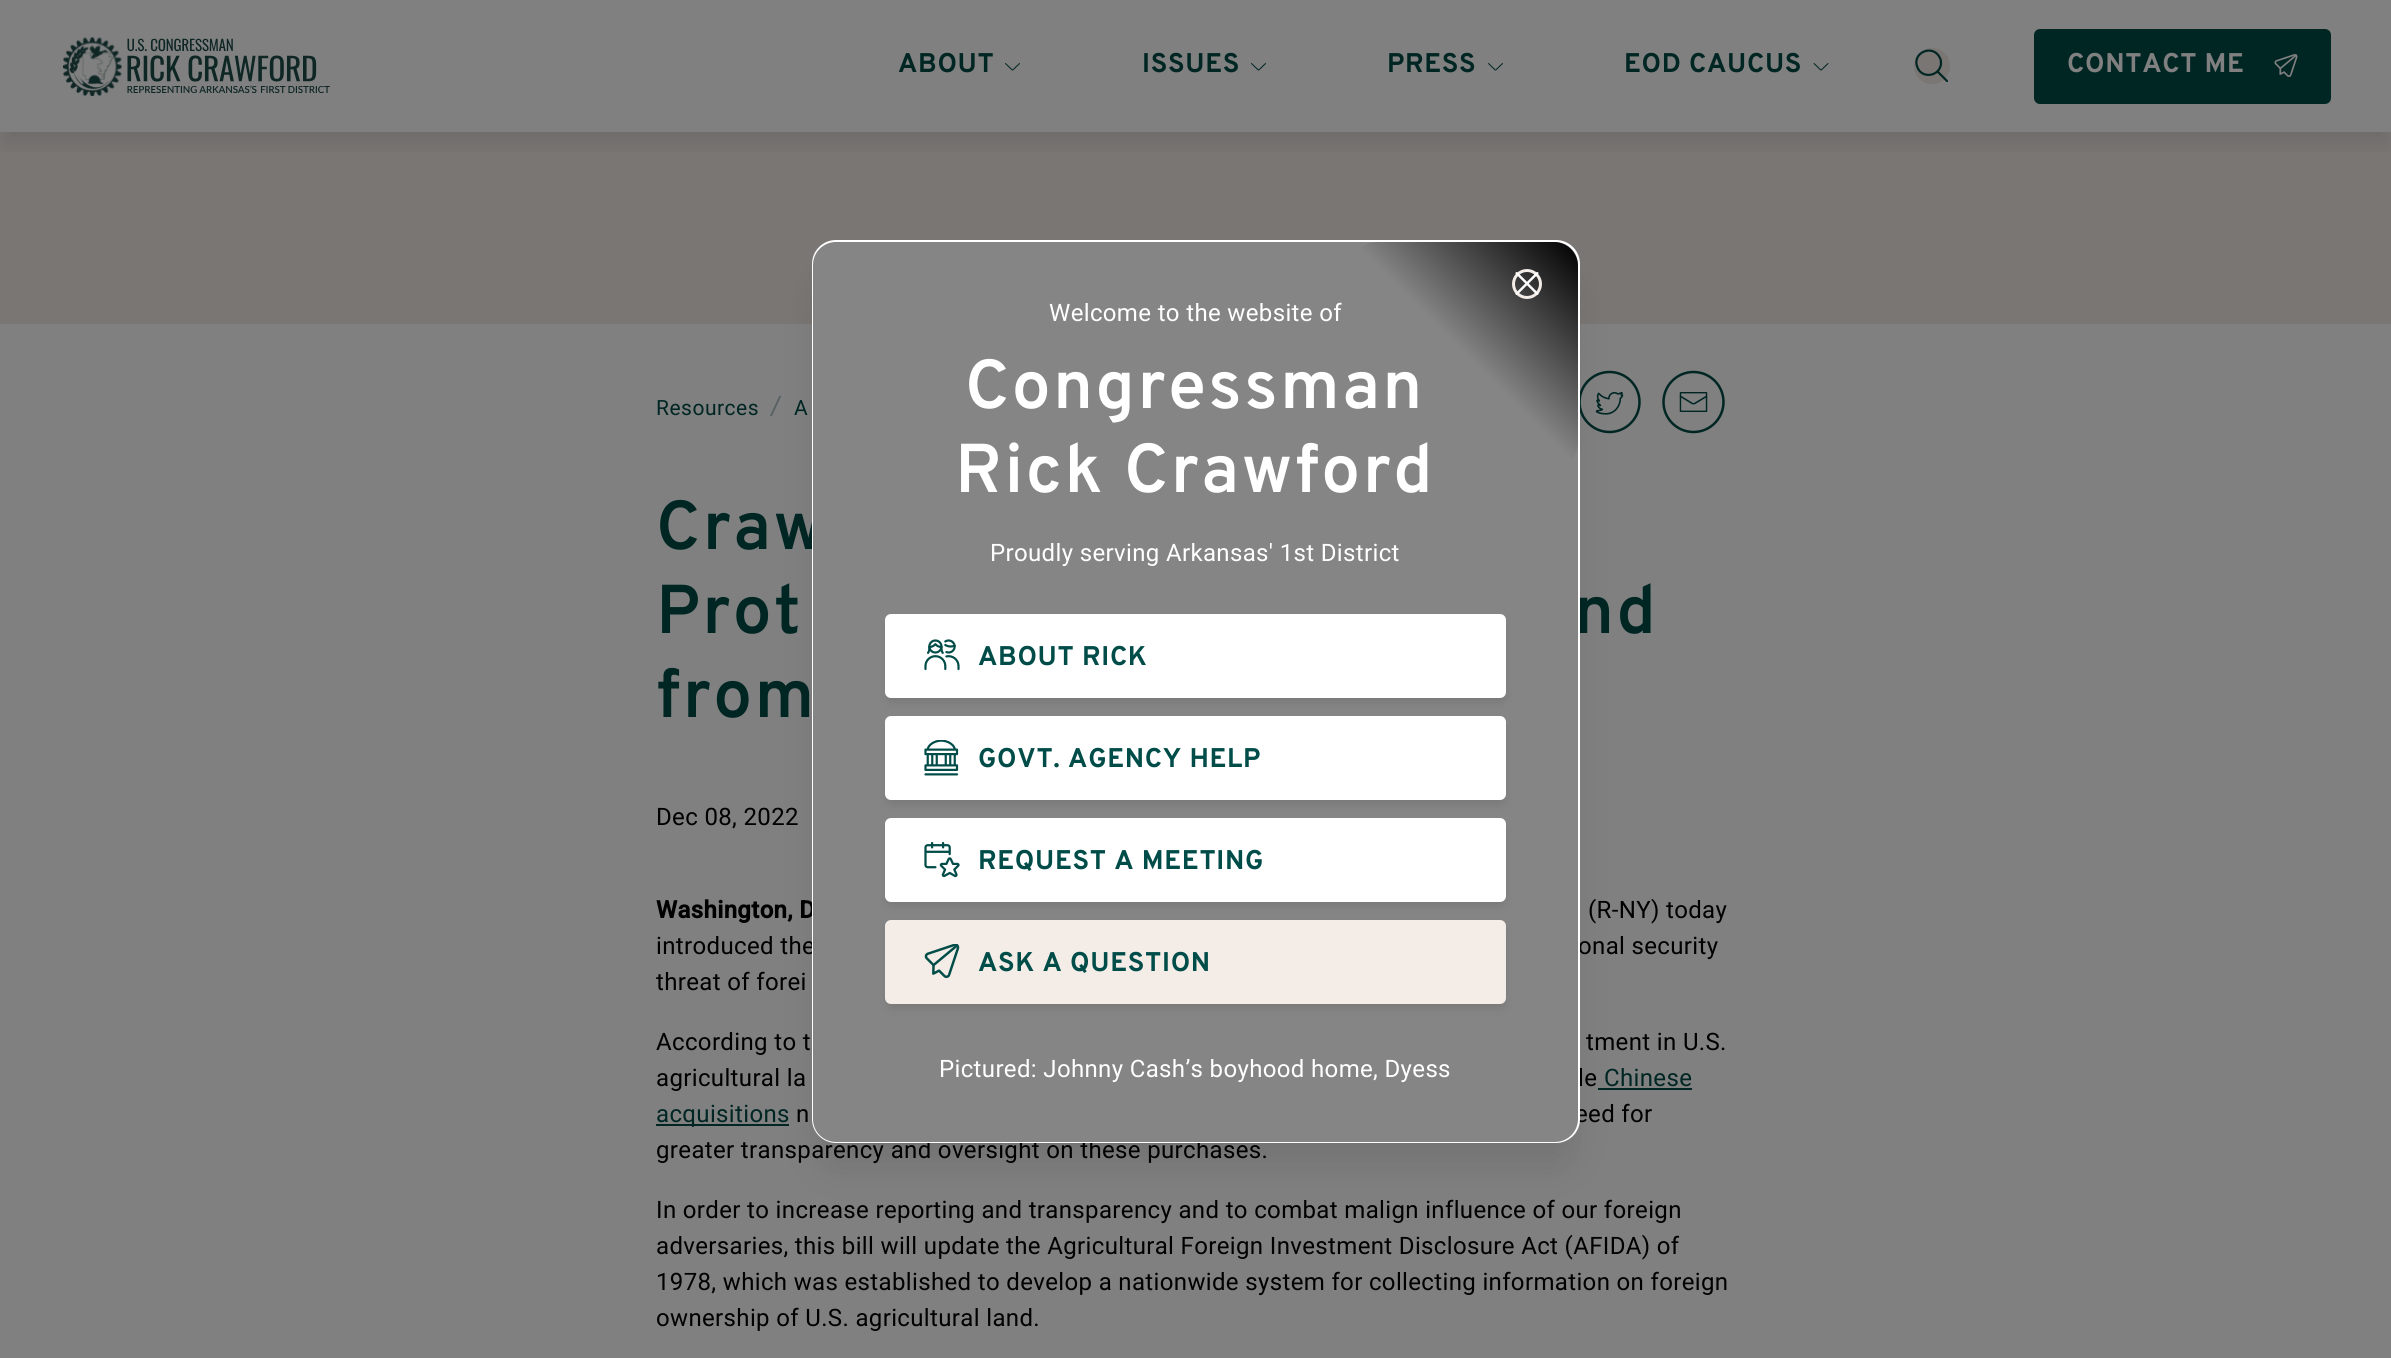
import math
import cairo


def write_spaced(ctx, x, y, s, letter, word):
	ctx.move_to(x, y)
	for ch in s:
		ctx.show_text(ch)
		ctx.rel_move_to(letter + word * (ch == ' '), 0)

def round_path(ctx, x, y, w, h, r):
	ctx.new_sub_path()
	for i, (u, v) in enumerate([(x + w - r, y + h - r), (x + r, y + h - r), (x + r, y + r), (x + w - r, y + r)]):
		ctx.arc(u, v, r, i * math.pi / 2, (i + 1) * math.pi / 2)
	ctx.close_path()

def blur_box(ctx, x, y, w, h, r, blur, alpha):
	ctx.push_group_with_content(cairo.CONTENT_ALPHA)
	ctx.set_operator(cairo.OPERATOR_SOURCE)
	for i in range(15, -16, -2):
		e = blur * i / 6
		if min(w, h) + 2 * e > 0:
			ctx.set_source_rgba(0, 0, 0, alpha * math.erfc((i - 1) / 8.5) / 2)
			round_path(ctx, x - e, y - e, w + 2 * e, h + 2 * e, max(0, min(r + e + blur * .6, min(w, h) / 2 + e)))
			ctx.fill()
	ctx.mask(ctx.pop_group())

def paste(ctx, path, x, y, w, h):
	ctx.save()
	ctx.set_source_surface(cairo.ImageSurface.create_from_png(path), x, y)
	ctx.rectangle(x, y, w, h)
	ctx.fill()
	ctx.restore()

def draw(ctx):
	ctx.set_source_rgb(0.502, 0.502, 0.502)
	ctx.paint()
	ctx.set_source_rgb(0.478, 0.463, 0.455)
	ctx.rectangle(0, 132, 2391, 192)
	ctx.fill()
	ctx.save()
	ctx.rectangle(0, 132, 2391, 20)
	ctx.clip()
	ctx.set_source_rgb(0, 0, 0)
	blur_box(ctx, 5, 20, 2382, 123, 0, 11, 0.1)
	ctx.restore()
	paste(ctx, 'media/1.png', 63, 37, 267, 59)
	ctx.select_font_face('Overpass', cairo.FONT_SLANT_NORMAL, cairo.FONT_WEIGHT_BOLD)
	ctx.set_font_size(27)
	ctx.set_source_rgb(0, 0.149, 0.141)
	write_spaced(ctx, 898, 72, 'ABOUT', 0.7, 0)
	paste(ctx, 'media/2.png', 1005, 63, 15, 8)
	write_spaced(ctx, 1142, 72, 'ISSUES', 0.7, 0)
	paste(ctx, 'media/2.png', 1251, 63, 15, 8)
	write_spaced(ctx, 1387, 72, 'PRESS', 0.7, 0)
	paste(ctx, 'media/2.png', 1488, 63, 15, 8)
	write_spaced(ctx, 1624, 72, 'EOD CAUCUS', 0.7, 0)
	paste(ctx, 'media/3.png', 1813, 63, 16, 8)
	ctx.set_source_rgb(0.478, 0.463, 0.455)
	ctx.arc(1932, 66, 18, 0, 2 * math.pi)
	ctx.fill()
	ctx.new_path()
	ctx.move_to(1917.5, 67.5)
	ctx.curve_to(1922, 79, 1939.5, 76.5, 1941, 64)
	ctx.curve_to(1941, 62, 1941, 60, 1940, 58)
	ctx.curve_to(1933, 43, 1911, 53, 1917.5, 67.5)
	ctx.close_path()
	ctx.move_to(1938, 72)
	ctx.line_to(1947, 81)
	ctx.set_source_rgb(0, 0.149, 0.141)
	ctx.set_line_width(2.2)
	ctx.set_line_cap(cairo.LINE_CAP_ROUND)
	ctx.set_line_join(cairo.LINE_JOIN_ROUND)
	ctx.stroke()
	round_path(ctx, 2034, 29, 297, 75, 6)
	ctx.fill()
	ctx.set_source_rgb(0.502, 0.502, 0.502)
	write_spaced(ctx, 2067, 72, 'CONTACT ME', 0.7, 0)
	paste(ctx, 'media/4.png', 2274, 54, 24, 23)
	ctx.select_font_face('Roboto')
	ctx.set_font_size(21)
	ctx.set_source_rgb(0, 0.149, 0.141)
	write_spaced(ctx, 656, 415, 'Resources', 0.5, 0)
	ctx.select_font_face('Overpass')
	ctx.set_font_size(24)
	ctx.set_source_rgb(0.345, 0.376, 0.388)
	write_spaced(ctx, 770, 413, '/', 1, 0)
	ctx.select_font_face('Roboto')
	ctx.set_font_size(21)
	ctx.set_source_rgb(0, 0.149, 0.141)
	write_spaced(ctx, 794, 415, 'A', 0.5, 0)
	paste(ctx, 'media/5.png', 1580, 370, 61, 64)
	paste(ctx, 'media/6.png', 1662, 370, 63, 64)
	ctx.select_font_face('Overpass SemiBold')
	ctx.set_font_size(69)
	for x, y, s in [
		(656, 549, 'Craw'),
		(656, 633, 'Prot'),
		(1574, 633, 'nd'),
		(656, 717, 'from'),
	]:
		write_spaced(ctx, x, y, s, 2.4, 0)
	ctx.select_font_face('Roboto')
	ctx.set_font_size(24)
	ctx.set_source_rgb(0, 0, 0)
	write_spaced(ctx, 656, 825, 'Dec 08, 2022', 0.35, 0)
	ctx.select_font_face('Roboto', cairo.FONT_SLANT_NORMAL, cairo.FONT_WEIGHT_BOLD)
	write_spaced(ctx, 656, 918, 'Washington, D', 0.35, 0)
	ctx.select_font_face('Roboto')
	for x, y, s in [
		(1588, 918, '(R-NY) today'),
		(656, 954, 'introduced the'),
		(1578, 954, 'onal security'),
		(656, 990, 'threat of forei'),
		(656, 1050, 'According to t'),
		(1586, 1050, 'tment in U.S.'),
		(656, 1086, 'agricultural la'),
		(1578, 1086, 'le'),
	]:
		write_spaced(ctx, x, y, s, 0.35, 0)
	ctx.set_source_rgb(0, 0.149, 0.141)
	write_spaced(ctx, 1604, 1086, 'Chinese', 0.35, 0)
	ctx.rectangle(1598, 1088, 94, 2)
	ctx.fill()
	ctx.rectangle(656, 1124, 133, 2)
	ctx.fill()
	write_spaced(ctx, 656, 1122, 'acquisitions', 0.35, 0)
	ctx.set_source_rgb(0, 0, 0)
	for x, y, s in [
		(796, 1122, 'n'),
		(1575, 1122, 'eed for'),
		(656, 1158, 'greater transparency and oversight on these purchases.'),
		(656, 1218, 'In order to increase reporting and transparency and to combat malign influence of our foreign'),
		(656, 1254, 'adversaries, this bill will update the Agricultural Foreign Investment Disclosure Act (AFIDA) of'),
		(656, 1290, '1978, which was established to develop a nationwide system for collecting information on foreign'),
		(656, 1326, 'ownership of U.S. agricultural land.'),
	]:
		write_spaced(ctx, x, y, s, 0.35, 0)
	ctx.set_source_rgb(0, 0, 0)
	blur_box(ctx, 819, 278, 753, 888, 17, 19, 0.1)
	ctx.set_source_rgb(1, 1, 1)
	round_path(ctx, 813, 241, 766, 901, 23)
	ctx.fill_preserve()
	ctx.set_line_width(2)
	ctx.set_line_cap(cairo.LINE_CAP_BUTT)
	ctx.set_line_join(cairo.LINE_JOIN_MITER)
	ctx.stroke()
	ctx.set_source_rgb(0.522, 0.522, 0.522)
	round_path(ctx, 813, 242, 765, 900, 23)
	ctx.fill()
	ctx.set_source_rgb(1, 1, 1)
	write_spaced(ctx, 1049, 321, 'Welcome to the website of', 0.35, 0)
	ctx.select_font_face('Overpass SemiBold')
	ctx.set_font_size(69)
	write_spaced(ctx, 965, 408, 'Congressman', 2.4, 0)
	write_spaced(ctx, 955, 492, 'Rick Crawford', 2.4, 0)
	ctx.select_font_face('Roboto')
	ctx.set_font_size(24)
	write_spaced(ctx, 990, 561, 'Proudly serving Arkansas\' 1st District', 0.35, 0)
	ctx.set_source_rgb(0, 0, 0)
	blur_box(ctx, 887, 621, 618, 81, 5, 4.5, 0.1)
	ctx.set_source_rgb(1, 1, 1)
	round_path(ctx, 885, 614, 621, 84, 6)
	ctx.fill()
	paste(ctx, 'media/7.png', 924, 639, 36, 32)
	ctx.select_font_face('Overpass', cairo.FONT_SLANT_NORMAL, cairo.FONT_WEIGHT_BOLD)
	ctx.set_font_size(27)
	ctx.set_source_rgb(0, 0.298, 0.282)
	write_spaced(ctx, 978, 665, 'ABOUT RICK', 0.7, 0)
	ctx.set_source_rgb(0, 0, 0)
	blur_box(ctx, 887, 723, 618, 81, 5, 4.5, 0.1)
	ctx.set_source_rgb(1, 1, 1)
	round_path(ctx, 885, 716, 621, 84, 6)
	ctx.fill()
	paste(ctx, 'media/8.png', 924, 740, 35, 36)
	ctx.set_source_rgb(0, 0.298, 0.282)
	write_spaced(ctx, 978, 767, 'GOVT. AGENCY HELP', 0.7, 0)
	ctx.set_source_rgb(0, 0, 0)
	blur_box(ctx, 887, 825, 618, 81, 5, 4.5, 0.1)
	ctx.set_source_rgb(1, 1, 1)
	round_path(ctx, 885, 818, 621, 84, 6)
	ctx.fill()
	paste(ctx, 'media/9.png', 924, 842, 36, 36)
	ctx.set_source_rgb(0, 0.298, 0.282)
	write_spaced(ctx, 978, 869, 'REQUEST A MEETING', 0.7, 0)
	ctx.set_source_rgb(0, 0, 0)
	blur_box(ctx, 887, 927, 618, 81, 5, 4.5, 0.1)
	ctx.set_source_rgb(0.953, 0.925, 0.906)
	round_path(ctx, 885, 920, 621, 84, 6)
	ctx.fill()
	paste(ctx, 'media/10.png', 924, 944, 36, 35)
	ctx.set_source_rgb(0, 0.298, 0.282)
	write_spaced(ctx, 978, 971, 'ASK A QUESTION', 0.7, 0)
	ctx.select_font_face('Roboto')
	ctx.set_font_size(24)
	ctx.set_source_rgb(1, 1, 1)
	write_spaced(ctx, 939, 1077, 'Pictured: Johnny Cash’s boyhood home, Dyess', 0.35, 0)
	ctx.save()
	round_path(ctx, 813, 242, 765, 900, 23)
	ctx.clip()
	gradient = cairo.LinearGradient(1578, 242, 1353, 467)
	gradient.add_color_stop_rgba(0, 0, 0, 0, 1)
	gradient.add_color_stop_rgba(0.5, 0, 0, 0, 0)
	ctx.set_source(gradient)
	round_path(ctx, 1353, 242, 225, 225, 24)
	ctx.fill()
	ctx.restore()
	ctx.arc(1527, 284, 13.5, 0, 2 * math.pi)
	ctx.set_source_rgb(0.953, 0.925, 0.906)
	ctx.set_line_width(3)
	ctx.stroke()
	paste(ctx, 'media/11.png', 1515, 272, 24, 23)


surface = cairo.ImageSurface(cairo.FORMAT_RGB24, 2391, 1358)
ctx = cairo.Context(surface)
options = cairo.FontOptions()
options.set_hint_metrics(cairo.HINT_METRICS_OFF)
options.set_hint_style(cairo.HINT_STYLE_NONE)
ctx.set_font_options(options)
ctx.set_miter_limit(4)
draw(ctx)
surface.write_to_png('image.png')
